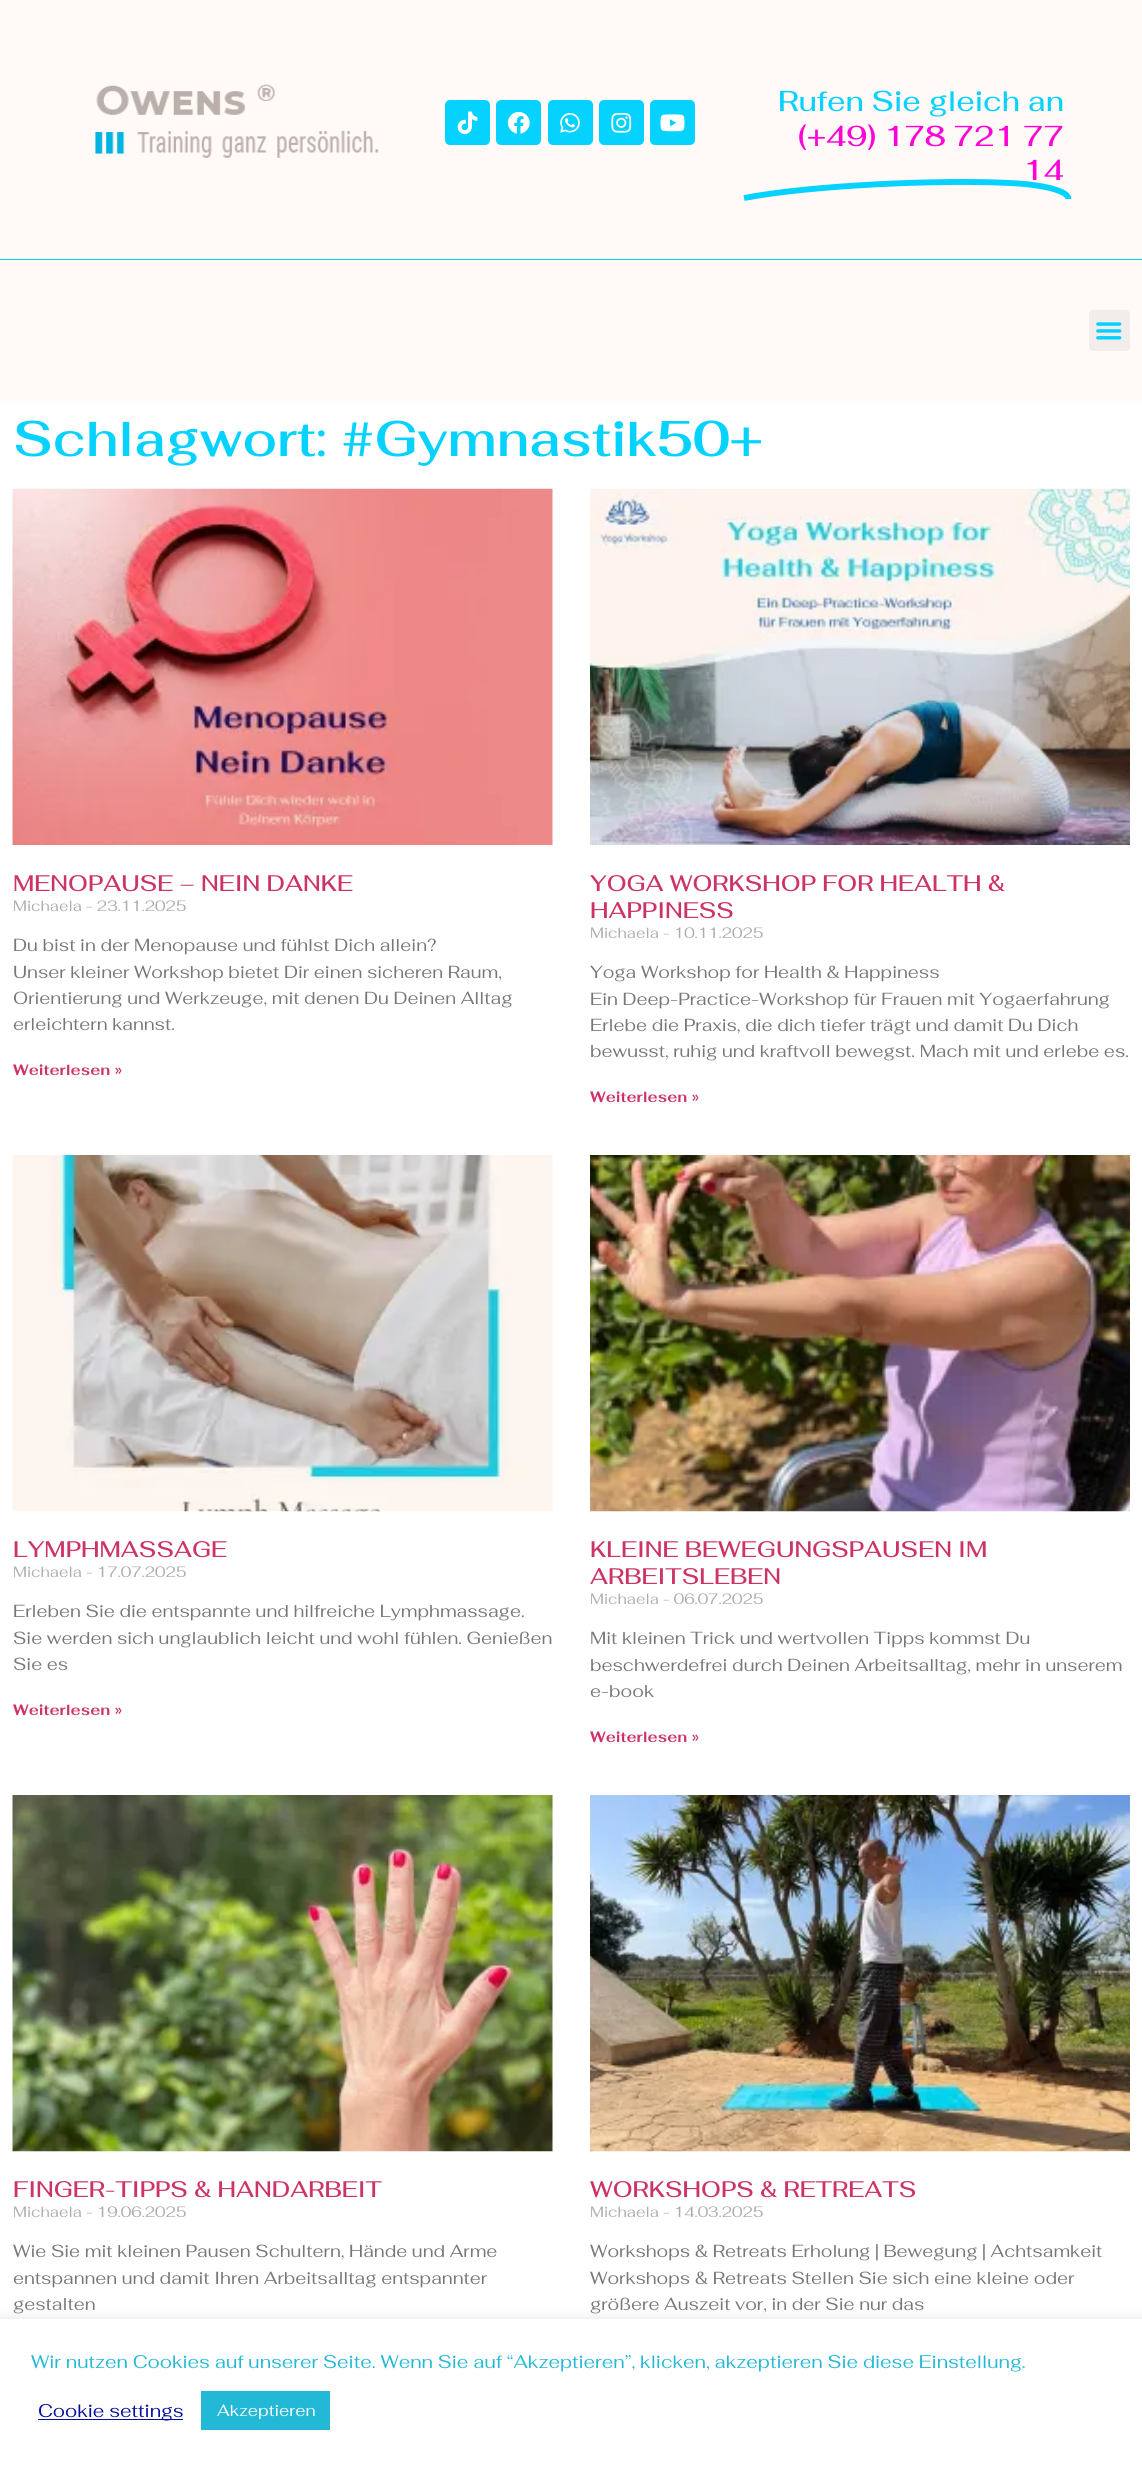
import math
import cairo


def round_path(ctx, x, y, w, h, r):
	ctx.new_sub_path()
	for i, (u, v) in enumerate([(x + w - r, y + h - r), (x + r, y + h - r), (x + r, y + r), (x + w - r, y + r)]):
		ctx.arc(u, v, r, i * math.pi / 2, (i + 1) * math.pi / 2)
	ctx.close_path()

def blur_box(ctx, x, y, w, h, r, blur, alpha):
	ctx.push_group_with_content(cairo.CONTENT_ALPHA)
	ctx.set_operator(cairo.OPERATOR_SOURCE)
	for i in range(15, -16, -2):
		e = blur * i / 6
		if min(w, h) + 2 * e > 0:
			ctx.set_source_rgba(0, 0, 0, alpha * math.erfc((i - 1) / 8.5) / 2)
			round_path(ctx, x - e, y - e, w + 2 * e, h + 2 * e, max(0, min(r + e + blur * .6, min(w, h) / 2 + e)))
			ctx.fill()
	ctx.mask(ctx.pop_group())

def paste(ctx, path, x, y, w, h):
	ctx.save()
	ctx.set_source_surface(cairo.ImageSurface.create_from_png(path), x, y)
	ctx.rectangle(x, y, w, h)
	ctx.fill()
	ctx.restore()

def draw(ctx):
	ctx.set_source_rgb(1, 1, 1)
	ctx.paint()
	ctx.set_source_rgb(1, 0.973, 0.965)
	ctx.rectangle(0, 0, 1142, 259)
	ctx.fill()
	ctx.set_source_rgb(0.027, 0.824, 1)
	ctx.rectangle(0, 259, 1142, 1)
	ctx.fill()
	paste(ctx, 'media/1.png', 95, 84, 284, 74)
	round_path(ctx, 445, 100, 45, 45, 5)
	ctx.fill()
	paste(ctx, 'media/2.png', 457, 111, 21, 24)
	round_path(ctx, 496, 100, 45, 45, 5)
	ctx.fill()
	paste(ctx, 'media/3.png', 507, 111, 23, 23)
	round_path(ctx, 548, 100, 45, 45, 5)
	ctx.fill()
	paste(ctx, 'media/4.png', 560, 113, 20, 20)
	round_path(ctx, 599, 100, 45, 45, 5)
	ctx.fill()
	paste(ctx, 'media/5.png', 611, 112, 21, 21)
	round_path(ctx, 650, 100, 45, 45, 5)
	ctx.fill()
	paste(ctx, 'media/6.png', 660, 114, 25, 18)
	ctx.select_font_face('Fahkwang Medium')
	ctx.set_font_size(28.75)
	ctx.move_to(778, 111)
	ctx.show_text('Rufen Sie gleich an')
	ctx.set_source_rgb(1, 0, 0.847)
	ctx.move_to(798, 146)
	ctx.show_text('(+49) 178 721 77')
	ctx.new_path()
	ctx.move_to(744, 198)
	ctx.curve_to(812.5, 185, 941, 179.5, 1009.5, 183)
	ctx.curve_to(1038, 184, 1068.5, 190, 1068.5, 199)
	ctx.set_source_rgb(0.027, 0.824, 1)
	ctx.set_line_width(5.9)
	ctx.stroke()
	ctx.set_source_rgb(1, 0, 0.847)
	ctx.move_to(1023, 180)
	ctx.show_text('14')
	ctx.set_source_rgb(1, 0.973, 0.965)
	ctx.rectangle(0, 260, 1142, 141)
	ctx.fill()
	ctx.set_source_rgb(0.949, 0.925, 0.918)
	round_path(ctx, 1089, 310, 41, 41, 4)
	ctx.fill()
	paste(ctx, 'media/7.png', 1096, 322, 26, 18)
	ctx.select_font_face('Fahkwang SemiBold')
	ctx.set_font_size(50)
	ctx.set_source_rgb(0.027, 0.824, 1)
	ctx.move_to(13, 456)
	ctx.show_text('Schlagwort: #Gymnastik50+')
	paste(ctx, 'media/8.png', 12, 488, 541, 357)
	ctx.select_font_face('Fahkwang Medium')
	ctx.set_font_size(22.5)
	ctx.set_source_rgb(0.8, 0.2, 0.4)
	ctx.move_to(13, 891)
	ctx.show_text('MENOPAUSE – NEIN DANKE')
	ctx.select_font_face('Fahkwang')
	ctx.set_font_size(15)
	ctx.set_source_rgb(0.678, 0.678, 0.678)
	ctx.move_to(13, 911)
	ctx.show_text('Michaela - 23.11.2025')
	ctx.set_font_size(17.5)
	ctx.set_source_rgb(0.467, 0.467, 0.467)
	for x, y, s in [
		(13, 951, 'Du bist in der Menopause und fühlst Dich allein?'),
		(13, 978, 'Unser kleiner Workshop bietet Dir einen sicheren Raum,'),
		(13, 1004, 'Orientierung und Werkzeuge, mit denen Du Deinen Alltag'),
		(13, 1030, 'erleichtern kannst.'),
	]:
		ctx.move_to(x, y)
		ctx.show_text(s)
	ctx.select_font_face('Fahkwang', cairo.FONT_SLANT_NORMAL, cairo.FONT_WEIGHT_BOLD)
	ctx.set_font_size(15)
	ctx.set_source_rgb(0.8, 0.2, 0.4)
	ctx.move_to(13, 1075)
	ctx.show_text('Weiterlesen »')
	paste(ctx, 'media/9.png', 590, 488, 540, 357)
	ctx.select_font_face('Fahkwang Medium')
	ctx.set_font_size(22.5)
	ctx.move_to(590, 891)
	ctx.show_text('YOGA WORKSHOP FOR HEALTH &')
	ctx.move_to(590, 918)
	ctx.show_text('HAPPINESS')
	ctx.select_font_face('Fahkwang')
	ctx.set_font_size(15)
	ctx.set_source_rgb(0.678, 0.678, 0.678)
	ctx.move_to(590, 938)
	ctx.show_text('Michaela - 10.11.2025')
	ctx.set_font_size(17.5)
	ctx.set_source_rgb(0.467, 0.467, 0.467)
	for x, y, s in [
		(590, 978, 'Yoga Workshop for Health & Happiness'),
		(590, 1005, 'Ein Deep-Practice-Workshop für Frauen mit Yogaerfahrung'),
		(590, 1031, 'Erlebe die Praxis, die dich tiefer trägt und damit Du Dich'),
		(590, 1057, 'bewusst, ruhig und kraftvoll bewegst. Mach mit und erlebe es.'),
	]:
		ctx.move_to(x, y)
		ctx.show_text(s)
	ctx.select_font_face('Fahkwang', cairo.FONT_SLANT_NORMAL, cairo.FONT_WEIGHT_BOLD)
	ctx.set_font_size(15)
	ctx.set_source_rgb(0.8, 0.2, 0.4)
	ctx.move_to(590, 1102)
	ctx.show_text('Weiterlesen »')
	paste(ctx, 'media/10.png', 12, 1155, 541, 357)
	ctx.select_font_face('Fahkwang Medium')
	ctx.set_font_size(22.5)
	ctx.move_to(13, 1557)
	ctx.show_text('LYMPHMASSAGE')
	ctx.select_font_face('Fahkwang')
	ctx.set_font_size(15)
	ctx.set_source_rgb(0.678, 0.678, 0.678)
	ctx.move_to(13, 1577)
	ctx.show_text('Michaela - 17.07.2025')
	ctx.set_font_size(17.5)
	ctx.set_source_rgb(0.467, 0.467, 0.467)
	for x, y, s in [
		(13, 1617, 'Erleben Sie die entspannte und hilfreiche Lymphmassage.'),
		(13, 1644, 'Sie werden sich unglaublich leicht und wohl fühlen. Genießen'),
		(13, 1670, 'Sie es'),
	]:
		ctx.move_to(x, y)
		ctx.show_text(s)
	ctx.select_font_face('Fahkwang', cairo.FONT_SLANT_NORMAL, cairo.FONT_WEIGHT_BOLD)
	ctx.set_font_size(15)
	ctx.set_source_rgb(0.8, 0.2, 0.4)
	ctx.move_to(13, 1715)
	ctx.show_text('Weiterlesen »')
	paste(ctx, 'media/11.png', 590, 1155, 540, 357)
	ctx.select_font_face('Fahkwang Medium')
	ctx.set_font_size(22.5)
	ctx.move_to(590, 1557)
	ctx.show_text('KLEINE BEWEGUNGSPAUSEN IM')
	ctx.move_to(590, 1584)
	ctx.show_text('ARBEITSLEBEN')
	ctx.select_font_face('Fahkwang')
	ctx.set_font_size(15)
	ctx.set_source_rgb(0.678, 0.678, 0.678)
	ctx.move_to(590, 1604)
	ctx.show_text('Michaela - 06.07.2025')
	ctx.set_font_size(17.5)
	ctx.set_source_rgb(0.467, 0.467, 0.467)
	for x, y, s in [
		(590, 1644, 'Mit kleinen Trick und wertvollen Tipps kommst Du'),
		(590, 1671, 'beschwerdefrei durch Deinen Arbeitsalltag, mehr in unserem'),
		(590, 1697, 'e-book'),
	]:
		ctx.move_to(x, y)
		ctx.show_text(s)
	ctx.select_font_face('Fahkwang', cairo.FONT_SLANT_NORMAL, cairo.FONT_WEIGHT_BOLD)
	ctx.set_font_size(15)
	ctx.set_source_rgb(0.8, 0.2, 0.4)
	ctx.move_to(590, 1742)
	ctx.show_text('Weiterlesen »')
	paste(ctx, 'media/12.png', 12, 1795, 541, 357)
	ctx.select_font_face('Fahkwang Medium')
	ctx.set_font_size(22.5)
	ctx.move_to(13, 2197)
	ctx.show_text('FINGER-TIPPS & HANDARBEIT')
	ctx.select_font_face('Fahkwang')
	ctx.set_font_size(15)
	ctx.set_source_rgb(0.678, 0.678, 0.678)
	ctx.move_to(13, 2217)
	ctx.show_text('Michaela - 19.06.2025')
	ctx.set_font_size(17.5)
	ctx.set_source_rgb(0.467, 0.467, 0.467)
	for x, y, s in [
		(13, 2257, 'Wie Sie mit kleinen Pausen Schultern, Hände und Arme'),
		(13, 2284, 'entspannen und damit Ihren Arbeitsalltag entspannter'),
		(13, 2310, 'gestalten'),
	]:
		ctx.move_to(x, y)
		ctx.show_text(s)
	paste(ctx, 'media/13.png', 590, 1795, 540, 357)
	ctx.select_font_face('Fahkwang Medium')
	ctx.set_font_size(22.5)
	ctx.set_source_rgb(0.8, 0.2, 0.4)
	ctx.move_to(590, 2197)
	ctx.show_text('WORKSHOPS & RETREATS')
	ctx.select_font_face('Fahkwang')
	ctx.set_font_size(15)
	ctx.set_source_rgb(0.678, 0.678, 0.678)
	ctx.move_to(590, 2217)
	ctx.show_text('Michaela - 14.03.2025')
	ctx.set_font_size(17.5)
	ctx.set_source_rgb(0.467, 0.467, 0.467)
	for x, y, s in [
		(590, 2257, 'Workshops & Retreats Erholung | Bewegung | Achtsamkeit'),
		(590, 2284, 'Workshops & Retreats Stellen Sie sich eine kleine oder'),
		(590, 2310, 'größere Auszeit vor, in der Sie nur das'),
	]:
		ctx.move_to(x, y)
		ctx.show_text(s)
	ctx.set_source_rgb(0.675, 0.671, 0.671)
	blur_box(ctx, 0, 2318, 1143, 148, 0, 6, 0.3)
	ctx.set_source_rgb(1, 1, 1)
	ctx.rectangle(0, 2319, 1142, 148)
	ctx.fill()
	ctx.set_font_size(18.33)
	ctx.set_source_rgb(0.133, 0.722, 0.839)
	ctx.move_to(31, 2368)
	ctx.show_text('Wir nutzen Cookies auf unserer Seite. Wenn Sie auf “Akzeptieren”, klicken, akzeptieren Sie diese Einstellung.')
	ctx.set_source_rgb(0.016, 0.055, 0.62)
	ctx.rectangle(38, 2419, 145, 1)
	ctx.fill()
	ctx.move_to(38, 2417)
	ctx.show_text('Cookie settings')
	ctx.set_source_rgb(0.133, 0.722, 0.839)
	ctx.rectangle(201, 2391, 129, 39)
	ctx.fill()
	ctx.set_font_size(16.25)
	ctx.set_source_rgb(1, 1, 1)
	ctx.move_to(217, 2416)
	ctx.show_text('Akzeptieren')


surface = cairo.ImageSurface(cairo.FORMAT_RGB24, 1142, 2467)
ctx = cairo.Context(surface)
options = cairo.FontOptions()
options.set_hint_metrics(cairo.HINT_METRICS_OFF)
options.set_hint_style(cairo.HINT_STYLE_NONE)
ctx.set_font_options(options)
ctx.set_miter_limit(4)
draw(ctx)
surface.write_to_png('image.png')
